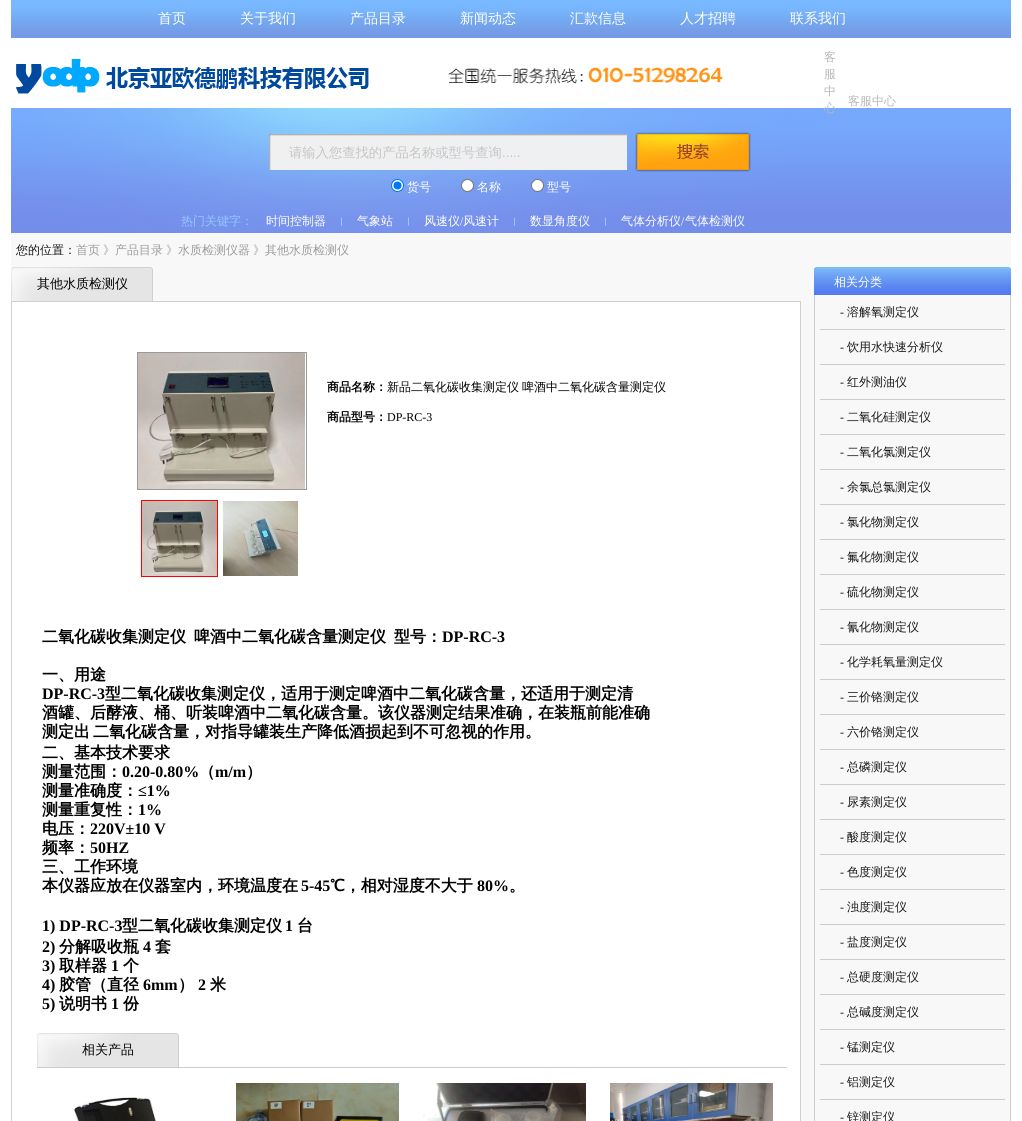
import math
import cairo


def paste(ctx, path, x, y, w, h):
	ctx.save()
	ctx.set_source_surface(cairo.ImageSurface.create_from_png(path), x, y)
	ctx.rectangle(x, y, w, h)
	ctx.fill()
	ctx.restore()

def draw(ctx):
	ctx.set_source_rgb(1, 1, 1)
	ctx.paint()
	ctx.set_source_rgb(0.969, 0.969, 0.969)
	ctx.rectangle(11, 108, 1000, 1013)
	ctx.fill()
	paste(ctx, 'media/1.png', 11, 0, 1000, 38)
	ctx.select_font_face('WenQuanYi Zen Hei Medium')
	ctx.set_font_size(14)
	ctx.set_source_rgb(1, 1, 1)
	for x, y, s in [
		(158, 23, '首页'),
		(240, 23, '关于我们'),
		(350, 23, '产品目录'),
		(460, 23, '新闻动态'),
		(570, 23, '汇款信息'),
		(680, 23, '人才招聘'),
		(790, 23, '联系我们'),
	]:
		ctx.move_to(x, y)
		ctx.show_text(s)
	paste(ctx, 'media/2.png', 16, 59, 353, 35)
	paste(ctx, 'media/3.png', 448, 67, 275, 17)
	ctx.set_font_size(12)
	ctx.set_source_rgb(0.722, 0.722, 0.722)
	for x, y, s in [
		(824, 61, '客'),
		(824, 78, '服'),
		(824, 95, '中'),
	]:
		ctx.move_to(x, y)
		ctx.show_text(s)
	paste(ctx, 'media/4.png', 11, 108, 1000, 125)
	ctx.move_to(824, 112)
	ctx.show_text('心')
	ctx.move_to(848, 105)
	ctx.show_text('客服中心')
	paste(ctx, 'media/5.png', 269, 134, 359, 37)
	ctx.set_font_size(13.3)
	ctx.set_source_rgb(0.773, 0.773, 0.773)
	ctx.move_to(289, 157)
	ctx.show_text('请输入您查找的产品名称或型号查询')
	ctx.select_font_face('Liberation Sans')
	ctx.move_to(502, 157)
	ctx.show_text('.....')
	paste(ctx, 'media/6.png', 635, 132, 116, 40)
	ctx.set_source_rgb(1, 1, 1)
	ctx.arc(397.5, 185.5, 6, 0, 2 * math.pi)
	ctx.fill_preserve()
	ctx.set_source_rgb(0, 0.459, 1)
	ctx.set_line_width(1)
	ctx.stroke()
	ctx.arc(397.5, 185.5, 4, 0, 2 * math.pi)
	ctx.fill()
	ctx.select_font_face('WenQuanYi Zen Hei Medium')
	ctx.set_font_size(12)
	ctx.set_source_rgb(1, 1, 1)
	ctx.move_to(407, 191)
	ctx.show_text('货号')
	ctx.new_path()
	ctx.arc(467.5, 185.5, 6, 0, 2 * math.pi)
	ctx.fill_preserve()
	ctx.set_source_rgb(0.463, 0.463, 0.463)
	ctx.stroke()
	ctx.set_source_rgb(1, 1, 1)
	ctx.move_to(477, 191)
	ctx.show_text('名称')
	ctx.new_path()
	ctx.arc(537.5, 185.5, 6, 0, 2 * math.pi)
	ctx.fill_preserve()
	ctx.set_source_rgb(0.463, 0.463, 0.463)
	ctx.stroke()
	ctx.set_source_rgb(1, 1, 1)
	ctx.move_to(547, 191)
	ctx.show_text('型号')
	ctx.set_source_rgb(0.588, 0.78, 1)
	ctx.move_to(181, 225)
	ctx.show_text('热门关键字：')
	ctx.set_source_rgb(1, 1, 1)
	ctx.move_to(266, 225)
	ctx.show_text('时间控制器')
	paste(ctx, 'media/7.png', 341, 217, 1, 9)
	ctx.move_to(357, 225)
	ctx.show_text('气象站')
	paste(ctx, 'media/7.png', 408, 217, 1, 9)
	ctx.move_to(424, 225)
	ctx.show_text('风速仪')
	ctx.select_font_face('Liberation Serif')
	ctx.move_to(460, 225)
	ctx.show_text('/')
	ctx.select_font_face('WenQuanYi Zen Hei Medium')
	ctx.move_to(463, 225)
	ctx.show_text('风速计')
	paste(ctx, 'media/7.png', 514, 217, 1, 9)
	ctx.move_to(530, 225)
	ctx.show_text('数显角度仪')
	paste(ctx, 'media/7.png', 605, 217, 1, 9)
	ctx.move_to(621, 225)
	ctx.show_text('气体分析仪')
	ctx.select_font_face('Liberation Serif')
	ctx.move_to(681, 225)
	ctx.show_text('/')
	ctx.select_font_face('WenQuanYi Zen Hei Medium')
	ctx.move_to(685, 225)
	ctx.show_text('气体检测仪')
	ctx.set_source_rgb(0.094, 0.094, 0.094)
	ctx.move_to(16, 254)
	ctx.show_text('您的位置：')
	ctx.set_source_rgb(0.608, 0.608, 0.608)
	for x, y, s in [
		(76, 254, '首页'),
		(103, 254, '》产品目录'),
		(166, 254, '》水质检测仪器'),
		(253, 254, '》其他水质检测仪'),
	]:
		ctx.move_to(x, y)
		ctx.show_text(s)
	paste(ctx, 'media/8.png', 11, 267, 142, 34)
	ctx.set_font_size(13)
	ctx.set_source_rgb(0, 0, 0)
	ctx.move_to(37, 288)
	ctx.show_text('其他水质检测仪')
	ctx.set_source_rgb(1, 1, 1)
	ctx.rectangle(11.5, 301.5, 789, 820)
	ctx.fill_preserve()
	ctx.set_source_rgb(0.816, 0.816, 0.816)
	ctx.stroke()
	ctx.rectangle(137.5, 352.5, 169, 137)
	ctx.set_source_rgb(0.6, 0.6, 0.6)
	ctx.stroke()
	paste(ctx, 'media/9.png', 138, 353, 167, 136)
	ctx.rectangle(141.5, 500.5, 76, 76)
	ctx.set_source_rgb(1, 0, 0)
	ctx.stroke()
	paste(ctx, 'media/10.png', 142, 501, 75, 75)
	paste(ctx, 'media/11.png', 223, 501, 75, 75)
	ctx.select_font_face('WenQuanYi Zen Hei', cairo.FONT_SLANT_NORMAL, cairo.FONT_WEIGHT_BOLD)
	ctx.set_font_size(12)
	ctx.set_source_rgb(0, 0, 0)
	ctx.move_to(327, 391)
	ctx.show_text('商品名称：')
	ctx.select_font_face('WenQuanYi Zen Hei Medium')
	ctx.move_to(387, 391)
	ctx.show_text('新品二氧化碳收集测定仪')
	ctx.move_to(522, 391)
	ctx.show_text('啤酒中二氧化碳含量测定仪')
	ctx.select_font_face('WenQuanYi Zen Hei', cairo.FONT_SLANT_NORMAL, cairo.FONT_WEIGHT_BOLD)
	ctx.move_to(327, 421)
	ctx.show_text('商品型号：')
	ctx.select_font_face('Liberation Serif')
	ctx.move_to(387, 421)
	ctx.show_text('DP-RC-3')
	ctx.select_font_face('WenQuanYi Zen Hei', cairo.FONT_SLANT_NORMAL, cairo.FONT_WEIGHT_BOLD)
	ctx.set_font_size(16)
	for x, y, s in [
		(42, 642, '二氧化碳收集测定仪'),
		(194, 642, '啤酒中二氧化碳含量测定仪'),
		(394, 642, '型号：'),
	]:
		ctx.move_to(x, y)
		ctx.show_text(s)
	ctx.select_font_face('Liberation Serif', cairo.FONT_SLANT_NORMAL, cairo.FONT_WEIGHT_BOLD)
	ctx.move_to(442, 642)
	ctx.show_text('DP-RC-3')
	ctx.select_font_face('WenQuanYi Zen Hei', cairo.FONT_SLANT_NORMAL, cairo.FONT_WEIGHT_BOLD)
	ctx.move_to(42, 680)
	ctx.show_text('一、用途')
	ctx.select_font_face('Liberation Serif', cairo.FONT_SLANT_NORMAL, cairo.FONT_WEIGHT_BOLD)
	ctx.move_to(42, 699)
	ctx.show_text('DP-RC-3')
	ctx.select_font_face('WenQuanYi Zen Hei', cairo.FONT_SLANT_NORMAL, cairo.FONT_WEIGHT_BOLD)
	for x, y, s in [
		(105, 699, '型二氧化碳收集测定仪，适用于测定啤酒中二氧化碳含量，还适用于测定清'),
		(42, 718, '酒罐、后酵液、桶、听装啤酒中二氧化碳含量。该仪器测定结果准确，在装瓶前能准确'),
		(42, 737, '测定出'),
		(93, 737, '二氧化碳含量，对指导罐装生产降低酒损起到不可忽视的作用。'),
		(42, 758, '二、基本技术要求'),
		(42, 777, '测量范围：'),
	]:
		ctx.move_to(x, y)
		ctx.show_text(s)
	ctx.select_font_face('Liberation Serif', cairo.FONT_SLANT_NORMAL, cairo.FONT_WEIGHT_BOLD)
	ctx.move_to(122, 777)
	ctx.show_text('0.20-0.80%')
	ctx.select_font_face('WenQuanYi Zen Hei', cairo.FONT_SLANT_NORMAL, cairo.FONT_WEIGHT_BOLD)
	ctx.move_to(199, 777)
	ctx.show_text('（')
	ctx.select_font_face('Liberation Serif', cairo.FONT_SLANT_NORMAL, cairo.FONT_WEIGHT_BOLD)
	ctx.move_to(215, 777)
	ctx.show_text('m/m')
	ctx.select_font_face('WenQuanYi Zen Hei', cairo.FONT_SLANT_NORMAL, cairo.FONT_WEIGHT_BOLD)
	ctx.move_to(246, 777)
	ctx.show_text('）')
	ctx.move_to(42, 796)
	ctx.show_text('测量准确度：')
	ctx.select_font_face('Liberation Serif', cairo.FONT_SLANT_NORMAL, cairo.FONT_WEIGHT_BOLD)
	ctx.move_to(138, 796)
	ctx.show_text('≤1%')
	ctx.select_font_face('WenQuanYi Zen Hei', cairo.FONT_SLANT_NORMAL, cairo.FONT_WEIGHT_BOLD)
	ctx.move_to(42, 815)
	ctx.show_text('测量重复性：')
	ctx.select_font_face('Liberation Serif', cairo.FONT_SLANT_NORMAL, cairo.FONT_WEIGHT_BOLD)
	ctx.move_to(138, 815)
	ctx.show_text('1%')
	ctx.select_font_face('WenQuanYi Zen Hei', cairo.FONT_SLANT_NORMAL, cairo.FONT_WEIGHT_BOLD)
	ctx.move_to(42, 834)
	ctx.show_text('电压：')
	ctx.select_font_face('Liberation Serif', cairo.FONT_SLANT_NORMAL, cairo.FONT_WEIGHT_BOLD)
	ctx.move_to(90, 834)
	ctx.show_text('220V±10 V')
	ctx.select_font_face('WenQuanYi Zen Hei', cairo.FONT_SLANT_NORMAL, cairo.FONT_WEIGHT_BOLD)
	ctx.move_to(42, 853)
	ctx.show_text('频率：')
	ctx.select_font_face('Liberation Serif', cairo.FONT_SLANT_NORMAL, cairo.FONT_WEIGHT_BOLD)
	ctx.move_to(90, 853)
	ctx.show_text('50HZ')
	ctx.select_font_face('WenQuanYi Zen Hei', cairo.FONT_SLANT_NORMAL, cairo.FONT_WEIGHT_BOLD)
	ctx.move_to(42, 872)
	ctx.show_text('三、工作环境')
	ctx.move_to(42, 891)
	ctx.show_text('本仪器应放在仪器室内，环境温度在')
	ctx.select_font_face('Liberation Serif', cairo.FONT_SLANT_NORMAL, cairo.FONT_WEIGHT_BOLD)
	ctx.move_to(301, 891)
	ctx.show_text('5-45')
	ctx.select_font_face('WenQuanYi Zen Hei', cairo.FONT_SLANT_NORMAL, cairo.FONT_WEIGHT_BOLD)
	ctx.move_to(330, 891)
	ctx.show_text('℃，相对湿度不大于')
	ctx.select_font_face('Liberation Serif', cairo.FONT_SLANT_NORMAL, cairo.FONT_WEIGHT_BOLD)
	ctx.move_to(477, 891)
	ctx.show_text('80%')
	ctx.select_font_face('WenQuanYi Zen Hei', cairo.FONT_SLANT_NORMAL, cairo.FONT_WEIGHT_BOLD)
	ctx.move_to(509, 891)
	ctx.show_text('。')
	ctx.select_font_face('Liberation Serif', cairo.FONT_SLANT_NORMAL, cairo.FONT_WEIGHT_BOLD)
	ctx.move_to(42, 931)
	ctx.show_text('1) DP-RC-3')
	ctx.select_font_face('WenQuanYi Zen Hei', cairo.FONT_SLANT_NORMAL, cairo.FONT_WEIGHT_BOLD)
	ctx.move_to(122, 931)
	ctx.show_text('型二氧化碳收集测定仪')
	ctx.select_font_face('Liberation Serif', cairo.FONT_SLANT_NORMAL, cairo.FONT_WEIGHT_BOLD)
	ctx.move_to(285, 931)
	ctx.show_text('1')
	ctx.select_font_face('WenQuanYi Zen Hei', cairo.FONT_SLANT_NORMAL, cairo.FONT_WEIGHT_BOLD)
	ctx.move_to(297, 931)
	ctx.show_text('台')
	ctx.select_font_face('Liberation Serif', cairo.FONT_SLANT_NORMAL, cairo.FONT_WEIGHT_BOLD)
	ctx.move_to(42, 952)
	ctx.show_text('2)')
	ctx.select_font_face('WenQuanYi Zen Hei', cairo.FONT_SLANT_NORMAL, cairo.FONT_WEIGHT_BOLD)
	ctx.move_to(59, 952)
	ctx.show_text('分解吸收瓶')
	ctx.select_font_face('Liberation Serif', cairo.FONT_SLANT_NORMAL, cairo.FONT_WEIGHT_BOLD)
	ctx.move_to(143, 952)
	ctx.show_text('4')
	ctx.select_font_face('WenQuanYi Zen Hei', cairo.FONT_SLANT_NORMAL, cairo.FONT_WEIGHT_BOLD)
	ctx.move_to(155, 952)
	ctx.show_text('套')
	ctx.select_font_face('Liberation Serif', cairo.FONT_SLANT_NORMAL, cairo.FONT_WEIGHT_BOLD)
	ctx.move_to(42, 971)
	ctx.show_text('3)')
	ctx.select_font_face('WenQuanYi Zen Hei', cairo.FONT_SLANT_NORMAL, cairo.FONT_WEIGHT_BOLD)
	ctx.move_to(59, 971)
	ctx.show_text('取样器')
	ctx.select_font_face('Liberation Serif', cairo.FONT_SLANT_NORMAL, cairo.FONT_WEIGHT_BOLD)
	ctx.move_to(111, 971)
	ctx.show_text('1')
	ctx.select_font_face('WenQuanYi Zen Hei', cairo.FONT_SLANT_NORMAL, cairo.FONT_WEIGHT_BOLD)
	ctx.move_to(123, 971)
	ctx.show_text('个')
	ctx.select_font_face('Liberation Serif', cairo.FONT_SLANT_NORMAL, cairo.FONT_WEIGHT_BOLD)
	ctx.move_to(42, 990)
	ctx.show_text('4)')
	ctx.select_font_face('WenQuanYi Zen Hei', cairo.FONT_SLANT_NORMAL, cairo.FONT_WEIGHT_BOLD)
	ctx.move_to(59, 990)
	ctx.show_text('胶管（直径')
	ctx.select_font_face('Liberation Serif', cairo.FONT_SLANT_NORMAL, cairo.FONT_WEIGHT_BOLD)
	ctx.move_to(143, 990)
	ctx.show_text('6mm')
	ctx.select_font_face('WenQuanYi Zen Hei', cairo.FONT_SLANT_NORMAL, cairo.FONT_WEIGHT_BOLD)
	ctx.move_to(178, 990)
	ctx.show_text('）')
	ctx.select_font_face('Liberation Serif', cairo.FONT_SLANT_NORMAL, cairo.FONT_WEIGHT_BOLD)
	ctx.move_to(198, 990)
	ctx.show_text('2')
	ctx.select_font_face('WenQuanYi Zen Hei', cairo.FONT_SLANT_NORMAL, cairo.FONT_WEIGHT_BOLD)
	ctx.move_to(210, 990)
	ctx.show_text('米')
	ctx.select_font_face('Liberation Serif', cairo.FONT_SLANT_NORMAL, cairo.FONT_WEIGHT_BOLD)
	ctx.move_to(42, 1009)
	ctx.show_text('5)')
	ctx.select_font_face('WenQuanYi Zen Hei', cairo.FONT_SLANT_NORMAL, cairo.FONT_WEIGHT_BOLD)
	ctx.move_to(59, 1009)
	ctx.show_text('说明书')
	ctx.select_font_face('Liberation Serif', cairo.FONT_SLANT_NORMAL, cairo.FONT_WEIGHT_BOLD)
	ctx.move_to(111, 1009)
	ctx.show_text('1')
	ctx.select_font_face('WenQuanYi Zen Hei', cairo.FONT_SLANT_NORMAL, cairo.FONT_WEIGHT_BOLD)
	ctx.move_to(123, 1009)
	ctx.show_text('份')
	paste(ctx, 'media/12.png', 37, 1033, 142, 34)
	ctx.select_font_face('WenQuanYi Zen Hei Medium')
	ctx.set_font_size(13)
	ctx.move_to(82, 1054)
	ctx.show_text('相关产品')
	ctx.set_source_rgb(0.8, 0.8, 0.8)
	ctx.rectangle(37, 1067, 750, 1)
	ctx.fill()
	paste(ctx, 'media/13.png', 74, 1097, 82, 24)
	paste(ctx, 'media/14.png', 236, 1083, 163, 38)
	paste(ctx, 'media/15.png', 423, 1083, 163, 38)
	paste(ctx, 'media/16.png', 610, 1083, 163, 38)
	paste(ctx, 'media/17.png', 814, 267, 197, 28)
	ctx.set_font_size(12)
	ctx.set_source_rgb(1, 1, 1)
	ctx.move_to(834, 286)
	ctx.show_text('相关分类')
	ctx.set_source_rgb(0.8, 0.8, 0.8)
	ctx.rectangle(1010, 295, 1, 826)
	ctx.rectangle(814, 295, 1, 826)
	ctx.rectangle(820, 329, 185, 1)
	ctx.fill()
	ctx.select_font_face('Liberation Serif')
	ctx.set_source_rgb(0.094, 0.094, 0.094)
	ctx.move_to(840, 316)
	ctx.show_text('-')
	ctx.select_font_face('WenQuanYi Zen Hei Medium')
	ctx.move_to(847, 316)
	ctx.show_text('溶解氧测定仪')
	ctx.set_source_rgb(0.8, 0.8, 0.8)
	ctx.rectangle(820, 364, 185, 1)
	ctx.fill()
	ctx.select_font_face('Liberation Serif')
	ctx.set_source_rgb(0.094, 0.094, 0.094)
	ctx.move_to(840, 351)
	ctx.show_text('-')
	ctx.select_font_face('WenQuanYi Zen Hei Medium')
	ctx.move_to(847, 351)
	ctx.show_text('饮用水快速分析仪')
	ctx.set_source_rgb(0.8, 0.8, 0.8)
	ctx.rectangle(820, 399, 185, 1)
	ctx.fill()
	ctx.select_font_face('Liberation Serif')
	ctx.set_source_rgb(0.094, 0.094, 0.094)
	ctx.move_to(840, 386)
	ctx.show_text('-')
	ctx.select_font_face('WenQuanYi Zen Hei Medium')
	ctx.move_to(847, 386)
	ctx.show_text('红外测油仪')
	ctx.set_source_rgb(0.8, 0.8, 0.8)
	ctx.rectangle(820, 434, 185, 1)
	ctx.fill()
	ctx.select_font_face('Liberation Serif')
	ctx.set_source_rgb(0.094, 0.094, 0.094)
	ctx.move_to(840, 421)
	ctx.show_text('-')
	ctx.select_font_face('WenQuanYi Zen Hei Medium')
	ctx.move_to(847, 421)
	ctx.show_text('二氧化硅测定仪')
	ctx.set_source_rgb(0.8, 0.8, 0.8)
	ctx.rectangle(820, 469, 185, 1)
	ctx.fill()
	ctx.select_font_face('Liberation Serif')
	ctx.set_source_rgb(0.094, 0.094, 0.094)
	ctx.move_to(840, 456)
	ctx.show_text('-')
	ctx.select_font_face('WenQuanYi Zen Hei Medium')
	ctx.move_to(847, 456)
	ctx.show_text('二氧化氯测定仪')
	ctx.set_source_rgb(0.8, 0.8, 0.8)
	ctx.rectangle(820, 504, 185, 1)
	ctx.fill()
	ctx.select_font_face('Liberation Serif')
	ctx.set_source_rgb(0.094, 0.094, 0.094)
	ctx.move_to(840, 491)
	ctx.show_text('-')
	ctx.select_font_face('WenQuanYi Zen Hei Medium')
	ctx.move_to(847, 491)
	ctx.show_text('余氯总氯测定仪')
	ctx.set_source_rgb(0.8, 0.8, 0.8)
	ctx.rectangle(820, 539, 185, 1)
	ctx.fill()
	ctx.select_font_face('Liberation Serif')
	ctx.set_source_rgb(0.094, 0.094, 0.094)
	ctx.move_to(840, 526)
	ctx.show_text('-')
	ctx.select_font_face('WenQuanYi Zen Hei Medium')
	ctx.move_to(847, 526)
	ctx.show_text('氯化物测定仪')
	ctx.set_source_rgb(0.8, 0.8, 0.8)
	ctx.rectangle(820, 574, 185, 1)
	ctx.fill()
	ctx.select_font_face('Liberation Serif')
	ctx.set_source_rgb(0.094, 0.094, 0.094)
	ctx.move_to(840, 561)
	ctx.show_text('-')
	ctx.select_font_face('WenQuanYi Zen Hei Medium')
	ctx.move_to(847, 561)
	ctx.show_text('氟化物测定仪')
	ctx.set_source_rgb(0.8, 0.8, 0.8)
	ctx.rectangle(820, 609, 185, 1)
	ctx.fill()
	ctx.select_font_face('Liberation Serif')
	ctx.set_source_rgb(0.094, 0.094, 0.094)
	ctx.move_to(840, 596)
	ctx.show_text('-')
	ctx.select_font_face('WenQuanYi Zen Hei Medium')
	ctx.move_to(847, 596)
	ctx.show_text('硫化物测定仪')
	ctx.set_source_rgb(0.8, 0.8, 0.8)
	ctx.rectangle(820, 644, 185, 1)
	ctx.fill()
	ctx.select_font_face('Liberation Serif')
	ctx.set_source_rgb(0.094, 0.094, 0.094)
	ctx.move_to(840, 631)
	ctx.show_text('-')
	ctx.select_font_face('WenQuanYi Zen Hei Medium')
	ctx.move_to(847, 631)
	ctx.show_text('氰化物测定仪')
	ctx.set_source_rgb(0.8, 0.8, 0.8)
	ctx.rectangle(820, 679, 185, 1)
	ctx.fill()
	ctx.select_font_face('Liberation Serif')
	ctx.set_source_rgb(0.094, 0.094, 0.094)
	ctx.move_to(840, 666)
	ctx.show_text('-')
	ctx.select_font_face('WenQuanYi Zen Hei Medium')
	ctx.move_to(847, 666)
	ctx.show_text('化学耗氧量测定仪')
	ctx.set_source_rgb(0.8, 0.8, 0.8)
	ctx.rectangle(820, 714, 185, 1)
	ctx.fill()
	ctx.select_font_face('Liberation Serif')
	ctx.set_source_rgb(0.094, 0.094, 0.094)
	ctx.move_to(840, 701)
	ctx.show_text('-')
	ctx.select_font_face('WenQuanYi Zen Hei Medium')
	ctx.move_to(847, 701)
	ctx.show_text('三价铬测定仪')
	ctx.set_source_rgb(0.8, 0.8, 0.8)
	ctx.rectangle(820, 749, 185, 1)
	ctx.fill()
	ctx.select_font_face('Liberation Serif')
	ctx.set_source_rgb(0.094, 0.094, 0.094)
	ctx.move_to(840, 736)
	ctx.show_text('-')
	ctx.select_font_face('WenQuanYi Zen Hei Medium')
	ctx.move_to(847, 736)
	ctx.show_text('六价铬测定仪')
	ctx.set_source_rgb(0.8, 0.8, 0.8)
	ctx.rectangle(820, 784, 185, 1)
	ctx.fill()
	ctx.select_font_face('Liberation Serif')
	ctx.set_source_rgb(0.094, 0.094, 0.094)
	ctx.move_to(840, 771)
	ctx.show_text('-')
	ctx.select_font_face('WenQuanYi Zen Hei Medium')
	ctx.move_to(847, 771)
	ctx.show_text('总磷测定仪')
	ctx.set_source_rgb(0.8, 0.8, 0.8)
	ctx.rectangle(820, 819, 185, 1)
	ctx.fill()
	ctx.select_font_face('Liberation Serif')
	ctx.set_source_rgb(0.094, 0.094, 0.094)
	ctx.move_to(840, 806)
	ctx.show_text('-')
	ctx.select_font_face('WenQuanYi Zen Hei Medium')
	ctx.move_to(847, 806)
	ctx.show_text('尿素测定仪')
	ctx.set_source_rgb(0.8, 0.8, 0.8)
	ctx.rectangle(820, 854, 185, 1)
	ctx.fill()
	ctx.select_font_face('Liberation Serif')
	ctx.set_source_rgb(0.094, 0.094, 0.094)
	ctx.move_to(840, 841)
	ctx.show_text('-')
	ctx.select_font_face('WenQuanYi Zen Hei Medium')
	ctx.move_to(847, 841)
	ctx.show_text('酸度测定仪')
	ctx.set_source_rgb(0.8, 0.8, 0.8)
	ctx.rectangle(820, 889, 185, 1)
	ctx.fill()
	ctx.select_font_face('Liberation Serif')
	ctx.set_source_rgb(0.094, 0.094, 0.094)
	ctx.move_to(840, 876)
	ctx.show_text('-')
	ctx.select_font_face('WenQuanYi Zen Hei Medium')
	ctx.move_to(847, 876)
	ctx.show_text('色度测定仪')
	ctx.set_source_rgb(0.8, 0.8, 0.8)
	ctx.rectangle(820, 924, 185, 1)
	ctx.fill()
	ctx.select_font_face('Liberation Serif')
	ctx.set_source_rgb(0.094, 0.094, 0.094)
	ctx.move_to(840, 911)
	ctx.show_text('-')
	ctx.select_font_face('WenQuanYi Zen Hei Medium')
	ctx.move_to(847, 911)
	ctx.show_text('浊度测定仪')
	ctx.set_source_rgb(0.8, 0.8, 0.8)
	ctx.rectangle(820, 959, 185, 1)
	ctx.fill()
	ctx.select_font_face('Liberation Serif')
	ctx.set_source_rgb(0.094, 0.094, 0.094)
	ctx.move_to(840, 946)
	ctx.show_text('-')
	ctx.select_font_face('WenQuanYi Zen Hei Medium')
	ctx.move_to(847, 946)
	ctx.show_text('盐度测定仪')
	ctx.set_source_rgb(0.8, 0.8, 0.8)
	ctx.rectangle(820, 994, 185, 1)
	ctx.fill()
	ctx.select_font_face('Liberation Serif')
	ctx.set_source_rgb(0.094, 0.094, 0.094)
	ctx.move_to(840, 981)
	ctx.show_text('-')
	ctx.select_font_face('WenQuanYi Zen Hei Medium')
	ctx.move_to(847, 981)
	ctx.show_text('总硬度测定仪')
	ctx.set_source_rgb(0.8, 0.8, 0.8)
	ctx.rectangle(820, 1029, 185, 1)
	ctx.fill()
	ctx.select_font_face('Liberation Serif')
	ctx.set_source_rgb(0.094, 0.094, 0.094)
	ctx.move_to(840, 1016)
	ctx.show_text('-')
	ctx.select_font_face('WenQuanYi Zen Hei Medium')
	ctx.move_to(847, 1016)
	ctx.show_text('总碱度测定仪')
	ctx.set_source_rgb(0.8, 0.8, 0.8)
	ctx.rectangle(820, 1064, 185, 1)
	ctx.fill()
	ctx.select_font_face('Liberation Serif')
	ctx.set_source_rgb(0.094, 0.094, 0.094)
	ctx.move_to(840, 1051)
	ctx.show_text('-')
	ctx.select_font_face('WenQuanYi Zen Hei Medium')
	ctx.move_to(847, 1051)
	ctx.show_text('锰测定仪')
	ctx.set_source_rgb(0.8, 0.8, 0.8)
	ctx.rectangle(820, 1099, 185, 1)
	ctx.fill()
	ctx.select_font_face('Liberation Serif')
	ctx.set_source_rgb(0.094, 0.094, 0.094)
	ctx.move_to(840, 1086)
	ctx.show_text('-')
	ctx.select_font_face('WenQuanYi Zen Hei Medium')
	ctx.move_to(847, 1086)
	ctx.show_text('铝测定仪')
	ctx.select_font_face('Liberation Serif')
	ctx.move_to(840, 1121)
	ctx.show_text('-')
	ctx.select_font_face('WenQuanYi Zen Hei Medium')
	ctx.move_to(847, 1121)
	ctx.show_text('锌测定仪')


surface = cairo.ImageSurface(cairo.FORMAT_RGB24, 1022, 1121)
ctx = cairo.Context(surface)
options = cairo.FontOptions()
options.set_hint_metrics(cairo.HINT_METRICS_OFF)
options.set_hint_style(cairo.HINT_STYLE_NONE)
ctx.set_font_options(options)
ctx.set_miter_limit(4)
draw(ctx)
surface.write_to_png('image.png')
